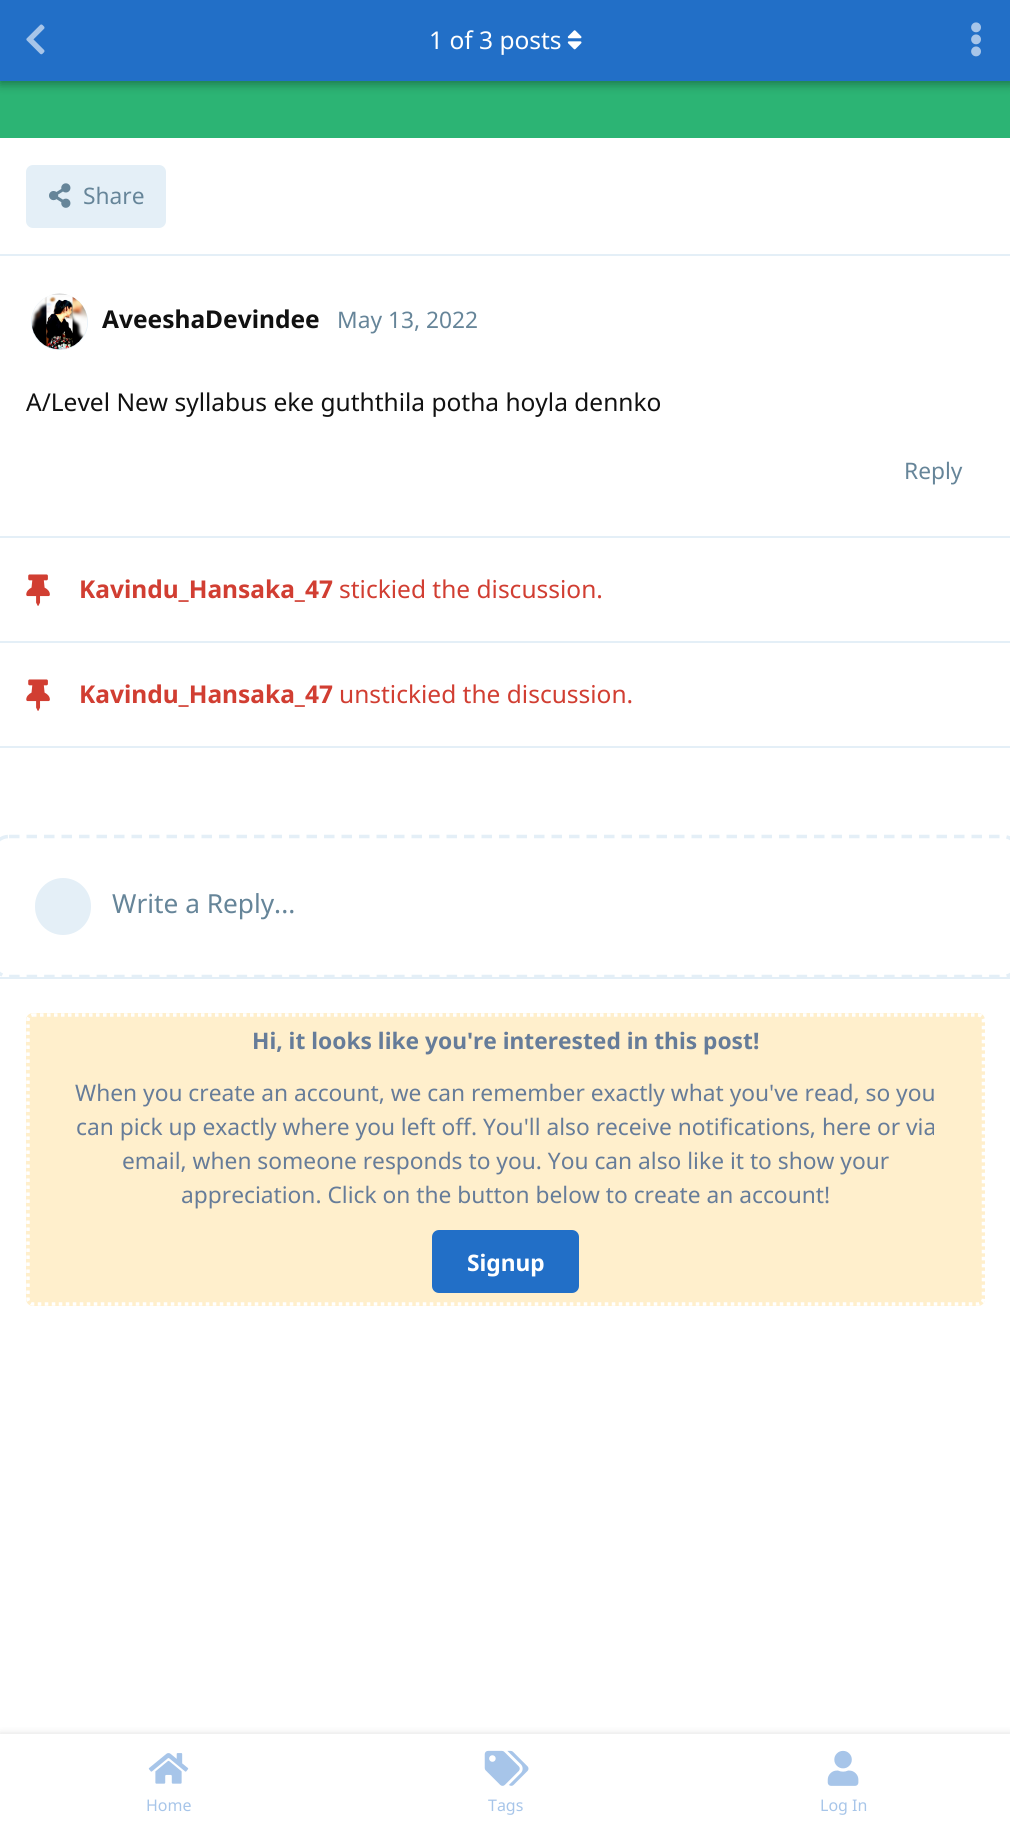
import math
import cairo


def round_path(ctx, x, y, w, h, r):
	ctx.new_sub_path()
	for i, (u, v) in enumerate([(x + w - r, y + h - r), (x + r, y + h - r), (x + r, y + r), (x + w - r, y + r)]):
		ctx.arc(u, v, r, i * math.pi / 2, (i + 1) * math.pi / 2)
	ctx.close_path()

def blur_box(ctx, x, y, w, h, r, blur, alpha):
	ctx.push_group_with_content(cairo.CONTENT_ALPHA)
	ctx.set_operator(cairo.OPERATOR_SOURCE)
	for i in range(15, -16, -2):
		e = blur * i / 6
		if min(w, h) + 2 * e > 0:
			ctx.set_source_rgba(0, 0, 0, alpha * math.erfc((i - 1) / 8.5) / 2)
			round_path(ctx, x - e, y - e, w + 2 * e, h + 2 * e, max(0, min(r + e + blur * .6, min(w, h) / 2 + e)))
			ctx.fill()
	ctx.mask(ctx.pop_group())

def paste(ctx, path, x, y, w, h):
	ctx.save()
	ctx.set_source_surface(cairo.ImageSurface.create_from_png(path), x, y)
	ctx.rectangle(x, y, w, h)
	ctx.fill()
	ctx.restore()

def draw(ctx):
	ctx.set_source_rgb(1, 1, 1)
	ctx.paint()
	ctx.set_source_rgb(0.173, 0.706, 0.455)
	ctx.rectangle(0, 81, 1010, 57)
	ctx.fill()
	ctx.set_source_rgb(0, 0, 0)
	blur_box(ctx, 0, 4, 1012, 80, 0, 5, 0.35)
	ctx.set_source_rgb(0.133, 0.435, 0.78)
	ctx.rectangle(0, 0, 1010, 81)
	ctx.fill()
	paste(ctx, 'media/1.png', 26, 24, 19, 31)
	ctx.set_source_rgb(0.894, 0.937, 0.965)
	ctx.rectangle(0, 254, 1010, 2)
	ctx.fill()
	ctx.select_font_face('Noto Sans')
	ctx.set_font_size(24.5)
	ctx.set_source_rgb(1, 1, 1)
	ctx.move_to(429, 49)
	ctx.show_text('1 of 3 posts')
	paste(ctx, 'media/2.png', 567, 30, 15, 20)
	paste(ctx, 'media/3.png', 971, 22, 10, 35)
	ctx.set_source_rgb(0.894, 0.937, 0.965)
	round_path(ctx, 26, 165, 140, 63, 7)
	ctx.fill()
	paste(ctx, 'media/4.png', 49, 183, 22, 25)
	ctx.set_font_size(22.75)
	ctx.set_source_rgb(0.4, 0.522, 0.6)
	ctx.move_to(83, 204)
	ctx.show_text('Share')
	ctx.set_source_rgb(0.894, 0.937, 0.965)
	ctx.rectangle(0, 536, 1010, 2)
	ctx.fill()
	round_path(ctx, 28.5, 291.5, 62, 61, 30.5)
	ctx.fill_preserve()
	ctx.set_source_rgb(1, 1, 1)
	ctx.set_line_width(5)
	ctx.stroke()
	paste(ctx, 'media/5.png', 31, 293, 57, 57)
	ctx.select_font_face('Noto Sans', cairo.FONT_SLANT_NORMAL, cairo.FONT_WEIGHT_BOLD)
	ctx.set_font_size(24.5)
	ctx.set_source_rgb(0.067, 0.067, 0.067)
	ctx.move_to(102, 328)
	ctx.show_text('AveeshaDevindee')
	ctx.select_font_face('Noto Sans')
	ctx.set_font_size(22.75)
	ctx.set_source_rgb(0.4, 0.522, 0.6)
	ctx.move_to(337, 328)
	ctx.show_text('May 13, 2022')
	ctx.set_font_size(24.5)
	ctx.set_source_rgb(0.067, 0.067, 0.067)
	ctx.move_to(26, 411)
	ctx.show_text('A/Level New syllabus eke guththila potha hoyla dennko')
	ctx.set_font_size(22.75)
	ctx.set_source_rgb(0.4, 0.522, 0.6)
	ctx.move_to(904, 479)
	ctx.show_text('Reply')
	ctx.set_source_rgb(0.894, 0.937, 0.965)
	ctx.rectangle(0, 641, 1010, 2)
	ctx.fill()
	paste(ctx, 'media/6.png', 26, 574, 24, 32)
	ctx.select_font_face('Noto Sans', cairo.FONT_SLANT_NORMAL, cairo.FONT_WEIGHT_BOLD)
	ctx.set_font_size(24.5)
	ctx.set_source_rgb(0.82, 0.243, 0.196)
	ctx.move_to(79, 598)
	ctx.show_text('Kavindu_Hansaka_47')
	ctx.select_font_face('Noto Sans')
	ctx.move_to(339, 598)
	ctx.show_text('stickied the discussion.')
	ctx.set_source_rgb(0.894, 0.937, 0.965)
	ctx.rectangle(0, 746, 1010, 2)
	ctx.fill()
	paste(ctx, 'media/6.png', 26, 679, 24, 32)
	ctx.select_font_face('Noto Sans', cairo.FONT_SLANT_NORMAL, cairo.FONT_WEIGHT_BOLD)
	ctx.set_source_rgb(0.82, 0.243, 0.196)
	ctx.move_to(79, 703)
	ctx.show_text('Kavindu_Hansaka_47')
	ctx.select_font_face('Noto Sans')
	ctx.move_to(339, 703)
	ctx.show_text('unstickied the discussion.')
	ctx.set_source_rgb(0.894, 0.937, 0.965)
	ctx.rectangle(0, 977, 1010, 2)
	ctx.fill()
	ctx.new_path()
	ctx.move_to(9, 836.5)
	ctx.line_to(1003, 836.5)
	ctx.curve_to(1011.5, 836.5, 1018.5, 843.5, 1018.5, 852)
	ctx.line_to(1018.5, 961)
	ctx.curve_to(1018.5, 969.5, 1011.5, 976.5, 1003, 976.5)
	ctx.line_to(9, 976.5)
	ctx.curve_to(0, 976.5, -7, 969.5, -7, 961)
	ctx.line_to(-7, 852)
	ctx.curve_to(-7, 843.5, 0, 836.5, 9, 836.5)
	ctx.close_path()
	ctx.set_line_width(3.5)
	ctx.set_dash([10.5, 7])
	ctx.stroke()
	round_path(ctx, 32.5, 875.5, 61, 62, 30.5)
	ctx.fill_preserve()
	ctx.set_source_rgb(1, 1, 1)
	ctx.set_line_width(5)
	ctx.set_dash([])
	ctx.stroke()
	ctx.set_font_size(26.25)
	ctx.set_source_rgb(0.4, 0.522, 0.6)
	ctx.move_to(112, 913)
	ctx.show_text('Write a Reply...')
	ctx.set_source_rgb(1, 0.937, 0.8)
	round_path(ctx, 26, 1013, 959, 293, 7)
	ctx.fill()
	ctx.new_path()
	ctx.move_to(33, 1015)
	ctx.line_to(978, 1015)
	ctx.curve_to(981, 1015, 983.5, 1017.5, 983.5, 1020)
	ctx.line_to(983.5, 1298.5)
	ctx.curve_to(983.5, 1301.5, 981, 1304, 978, 1304)
	ctx.line_to(33, 1304)
	ctx.curve_to(30.5, 1304, 28, 1301.5, 28, 1298.5)
	ctx.line_to(28, 1020)
	ctx.curve_to(28, 1017.5, 30.5, 1015, 33, 1015)
	ctx.close_path()
	ctx.set_source_rgb(1, 1, 1)
	ctx.set_line_width(3.5)
	ctx.set_dash([3.5, 3.5])
	ctx.stroke()
	ctx.select_font_face('Noto Sans', cairo.FONT_SLANT_NORMAL, cairo.FONT_WEIGHT_BOLD)
	ctx.set_font_size(22.75)
	ctx.set_source_rgb(0.4, 0.486, 0.6)
	ctx.move_to(252, 1049)
	ctx.show_text('Hi, it looks like you\'re interested in this post!')
	ctx.select_font_face('Noto Sans')
	for x, y, s in [
		(75, 1101, 'When you create an account, we can remember exactly what you\'ve read, so you'),
		(76, 1135, 'can pick up exactly where you left off. You\'ll also receive notifications, here or via'),
		(122, 1169, 'email, when someone responds to you. You can also like it to show your'),
		(181, 1203, 'appreciation. Click on the button below to create an account!'),
	]:
		ctx.move_to(x, y)
		ctx.show_text(s)
	ctx.set_source_rgb(0.133, 0.435, 0.78)
	round_path(ctx, 432, 1230, 147, 63, 7)
	ctx.fill()
	ctx.select_font_face('Noto Sans', cairo.FONT_SLANT_NORMAL, cairo.FONT_WEIGHT_BOLD)
	ctx.set_source_rgb(1, 1, 1)
	ctx.move_to(467, 1271)
	ctx.show_text('Signup')
	ctx.set_source_rgb(0, 0, 0)
	blur_box(ctx, 0, 1738, 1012, 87, 0, 5, 0.35)
	ctx.set_source_rgb(1, 1, 1)
	ctx.rectangle(0, 1734, 1010, 87)
	ctx.fill()
	paste(ctx, 'media/7.png', 148, 1753, 41, 31)
	ctx.select_font_face('Noto Sans')
	ctx.set_font_size(16)
	ctx.set_source_rgb(0.655, 0.773, 0.914)
	ctx.move_to(146, 1811)
	ctx.show_text('Home')
	paste(ctx, 'media/8.png', 484, 1750, 45, 36)
	ctx.move_to(488, 1811)
	ctx.show_text('Tags')
	paste(ctx, 'media/9.png', 827, 1750, 32, 36)
	ctx.move_to(820, 1811)
	ctx.show_text('Log In')


surface = cairo.ImageSurface(cairo.FORMAT_RGB24, 1010, 1821)
ctx = cairo.Context(surface)
options = cairo.FontOptions()
options.set_hint_metrics(cairo.HINT_METRICS_OFF)
options.set_hint_style(cairo.HINT_STYLE_NONE)
ctx.set_font_options(options)
ctx.set_miter_limit(4)
draw(ctx)
surface.write_to_png('image.png')
